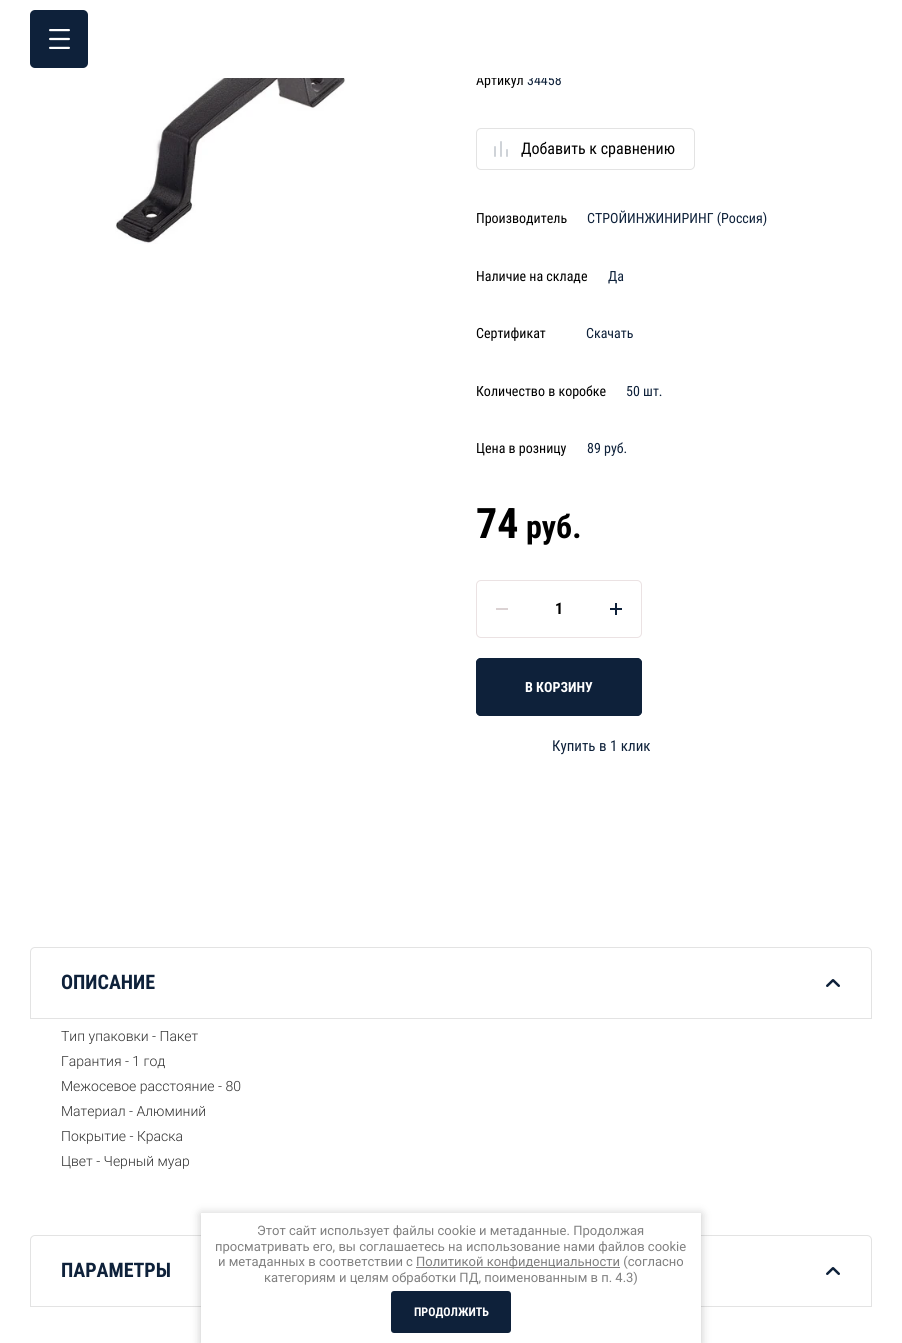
import math
import cairo


def round_path(ctx, x, y, w, h, r):
	ctx.new_sub_path()
	for i, (u, v) in enumerate([(x + w - r, y + h - r), (x + r, y + h - r), (x + r, y + r), (x + w - r, y + r)]):
		ctx.arc(u, v, r, i * math.pi / 2, (i + 1) * math.pi / 2)
	ctx.close_path()

def blur_box(ctx, x, y, w, h, r, blur, alpha):
	ctx.push_group_with_content(cairo.CONTENT_ALPHA)
	ctx.set_operator(cairo.OPERATOR_SOURCE)
	for i in range(15, -16, -2):
		e = blur * i / 6
		if min(w, h) + 2 * e > 0:
			ctx.set_source_rgba(0, 0, 0, alpha * math.erfc((i - 1) / 8.5) / 2)
			round_path(ctx, x - e, y - e, w + 2 * e, h + 2 * e, max(0, min(r + e + blur * .6, min(w, h) / 2 + e)))
			ctx.fill()
	ctx.mask(ctx.pop_group())

def paste(ctx, path, x, y, w, h):
	ctx.save()
	ctx.set_source_surface(cairo.ImageSurface.create_from_png(path), x, y)
	ctx.rectangle(x, y, w, h)
	ctx.fill()
	ctx.restore()

def draw(ctx):
	ctx.set_source_rgb(1, 1, 1)
	ctx.paint()
	ctx.select_font_face('Roboto Condensed')
	ctx.set_font_size(14)
	ctx.set_source_rgb(0, 0, 0)
	ctx.move_to(476, 85)
	ctx.show_text('Артикул')
	ctx.set_source_rgb(0.055, 0.129, 0.227)
	ctx.move_to(527, 85)
	ctx.show_text('34458')
	ctx.set_source_rgb(1, 1, 1)
	ctx.rectangle(478, 74, 83, 4)
	ctx.fill()
	ctx.set_source_rgb(0.055, 0.129, 0.227)
	round_path(ctx, 30, 10, 58, 58, 5)
	ctx.fill()
	paste(ctx, 'media/1.png', 49, 29, 21, 20)
	paste(ctx, 'media/2.png', 115, 78, 231, 166)
	round_path(ctx, 476.5, 128.5, 218, 41, 4.5)
	ctx.set_source_rgb(0.89, 0.89, 0.89)
	ctx.set_line_width(1)
	ctx.stroke()
	paste(ctx, 'media/3.png', 494, 141, 14, 16)
	ctx.set_font_size(16)
	ctx.set_source_rgb(0, 0, 0)
	ctx.move_to(521, 154)
	ctx.show_text('Добавить к сравнению')
	ctx.set_font_size(14)
	ctx.move_to(476, 223)
	ctx.show_text('Производитель')
	ctx.set_source_rgb(0.055, 0.129, 0.227)
	ctx.move_to(587, 223)
	ctx.show_text('СТРОЙИНЖИНИРИНГ (Россия)')
	ctx.set_source_rgb(0, 0, 0)
	ctx.move_to(476, 281)
	ctx.show_text('Наличие на складе')
	ctx.set_source_rgb(0.055, 0.129, 0.227)
	ctx.move_to(608, 281)
	ctx.show_text('Да')
	ctx.set_source_rgb(0, 0, 0)
	ctx.move_to(476, 338)
	ctx.show_text('Сертификат')
	ctx.set_source_rgb(0.055, 0.129, 0.227)
	ctx.move_to(586, 338)
	ctx.show_text('Скачать')
	ctx.set_source_rgb(0, 0, 0)
	ctx.move_to(476, 396)
	ctx.show_text('Количество в коробке')
	ctx.set_source_rgb(0.055, 0.129, 0.227)
	ctx.move_to(626, 396)
	ctx.show_text('50 шт.')
	ctx.set_source_rgb(0, 0, 0)
	ctx.move_to(476, 453)
	ctx.show_text('Цена в розницу')
	ctx.set_source_rgb(0.055, 0.129, 0.227)
	ctx.move_to(587, 453)
	ctx.show_text('89 руб.')
	ctx.select_font_face('Roboto Condensed', cairo.FONT_SLANT_NORMAL, cairo.FONT_WEIGHT_BOLD)
	ctx.set_font_size(42)
	ctx.set_source_rgb(0, 0, 0)
	ctx.move_to(476, 538)
	ctx.show_text('74')
	ctx.set_font_size(32)
	ctx.move_to(526, 538)
	ctx.show_text('руб.')
	round_path(ctx, 476.5, 580.5, 165, 57, 4.5)
	ctx.set_source_rgb(0.918, 0.886, 0.89)
	ctx.stroke()
	ctx.set_source_rgb(0.859, 0.824, 0.827)
	ctx.rectangle(496, 608, 12, 2)
	ctx.fill()
	ctx.set_font_size(16)
	ctx.set_source_rgb(0, 0, 0)
	ctx.move_to(555, 614)
	ctx.show_text('1')
	paste(ctx, 'media/4.png', 610, 603, 12, 12)
	ctx.set_source_rgb(0.055, 0.129, 0.227)
	round_path(ctx, 476, 658, 166, 58, 5)
	ctx.fill()
	round_path(ctx, 476.5, 658.5, 165, 57, 4.5)
	ctx.stroke()
	ctx.set_font_size(14)
	ctx.set_source_rgb(1, 1, 1)
	ctx.move_to(525, 692)
	ctx.show_text('В КОРЗИНУ')
	ctx.select_font_face('Roboto Condensed')
	ctx.set_font_size(15)
	ctx.set_source_rgb(0.055, 0.129, 0.227)
	ctx.move_to(552, 751)
	ctx.show_text('Купить в 1 клик')
	ctx.new_path()
	ctx.move_to(35, 947.5)
	ctx.line_to(867, 947.5)
	ctx.curve_to(869.5, 947.5, 871.5, 949.5, 871.5, 952)
	ctx.line_to(871.5, 1018.5)
	ctx.line_to(30.5, 1018.5)
	ctx.line_to(30.5, 952)
	ctx.curve_to(30.5, 949.5, 32.5, 947.5, 35, 947.5)
	ctx.close_path()
	ctx.set_source_rgb(0.89, 0.89, 0.89)
	ctx.stroke()
	ctx.select_font_face('Roboto Condensed', cairo.FONT_SLANT_NORMAL, cairo.FONT_WEIGHT_BOLD)
	ctx.set_font_size(20)
	ctx.set_source_rgb(0.055, 0.129, 0.227)
	ctx.move_to(61, 989)
	ctx.show_text('ОПИСАНИЕ')
	paste(ctx, 'media/5.png', 826, 979, 14, 8)
	ctx.select_font_face('Roboto Light')
	ctx.set_font_size(14)
	ctx.set_source_rgb(0.184, 0.184, 0.184)
	for x, y, s in [
		(61, 1041, 'Тип упаковки - Пакет'),
		(61, 1066, 'Гарантия - 1 год'),
		(61, 1091, 'Межосевое расстояние - 80'),
		(61, 1116, 'Материал - Алюминий'),
		(61, 1141, 'Покрытие - Краска'),
		(61, 1166, 'Цвет - Черный муар'),
	]:
		ctx.move_to(x, y)
		ctx.show_text(s)
	ctx.new_path()
	ctx.move_to(35, 1235.5)
	ctx.line_to(867, 1235.5)
	ctx.curve_to(869.5, 1235.5, 871.5, 1237.5, 871.5, 1240)
	ctx.line_to(871.5, 1306.5)
	ctx.line_to(30.5, 1306.5)
	ctx.line_to(30.5, 1240)
	ctx.curve_to(30.5, 1237.5, 32.5, 1235.5, 35, 1235.5)
	ctx.close_path()
	ctx.set_source_rgb(0.89, 0.89, 0.89)
	ctx.stroke()
	ctx.select_font_face('Roboto Condensed', cairo.FONT_SLANT_NORMAL, cairo.FONT_WEIGHT_BOLD)
	ctx.set_font_size(20)
	ctx.set_source_rgb(0.055, 0.129, 0.227)
	ctx.move_to(61, 1277)
	ctx.show_text('ПАРАМЕТРЫ')
	paste(ctx, 'media/5.png', 826, 1267, 14, 8)
	ctx.set_source_rgb(0, 0, 0)
	blur_box(ctx, 201, 1214, 500, 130, 0, 5, 0.23)
	ctx.set_source_rgb(1, 1, 1)
	ctx.rectangle(201, 1213, 500, 130)
	ctx.fill()
	ctx.select_font_face('Roboto')
	ctx.set_font_size(13)
	ctx.set_source_rgb(0.502, 0.502, 0.502)
	for x, y, s in [
		(257, 1235, 'Этот сайт использует файлы cookie и метаданные. Продолжая'),
		(215, 1251, 'просматривать его, вы соглашаетесь на использование нами файлов cookie'),
		(218, 1266, 'и метаданных в соответствии с'),
	]:
		ctx.move_to(x, y)
		ctx.show_text(s)
	ctx.rectangle(416, 1267, 204, 1)
	ctx.fill()
	ctx.move_to(416, 1266)
	ctx.show_text('Политикой конфиденциальности (согласно')
	ctx.move_to(264, 1282)
	ctx.show_text('категориям и целям обработки ПД, поименованным в п. 4.3)')
	ctx.set_source_rgb(0.055, 0.129, 0.227)
	round_path(ctx, 391, 1291, 120, 42, 3)
	ctx.fill()
	ctx.select_font_face('Roboto Condensed', cairo.FONT_SLANT_NORMAL, cairo.FONT_WEIGHT_BOLD)
	ctx.set_font_size(12)
	ctx.set_source_rgb(1, 1, 1)
	ctx.move_to(414, 1316)
	ctx.show_text('ПРОДОЛЖИТЬ')


surface = cairo.ImageSurface(cairo.FORMAT_RGB24, 902, 1343)
ctx = cairo.Context(surface)
options = cairo.FontOptions()
options.set_hint_metrics(cairo.HINT_METRICS_OFF)
options.set_hint_style(cairo.HINT_STYLE_NONE)
ctx.set_font_options(options)
ctx.set_miter_limit(4)
draw(ctx)
surface.write_to_png('image.png')
